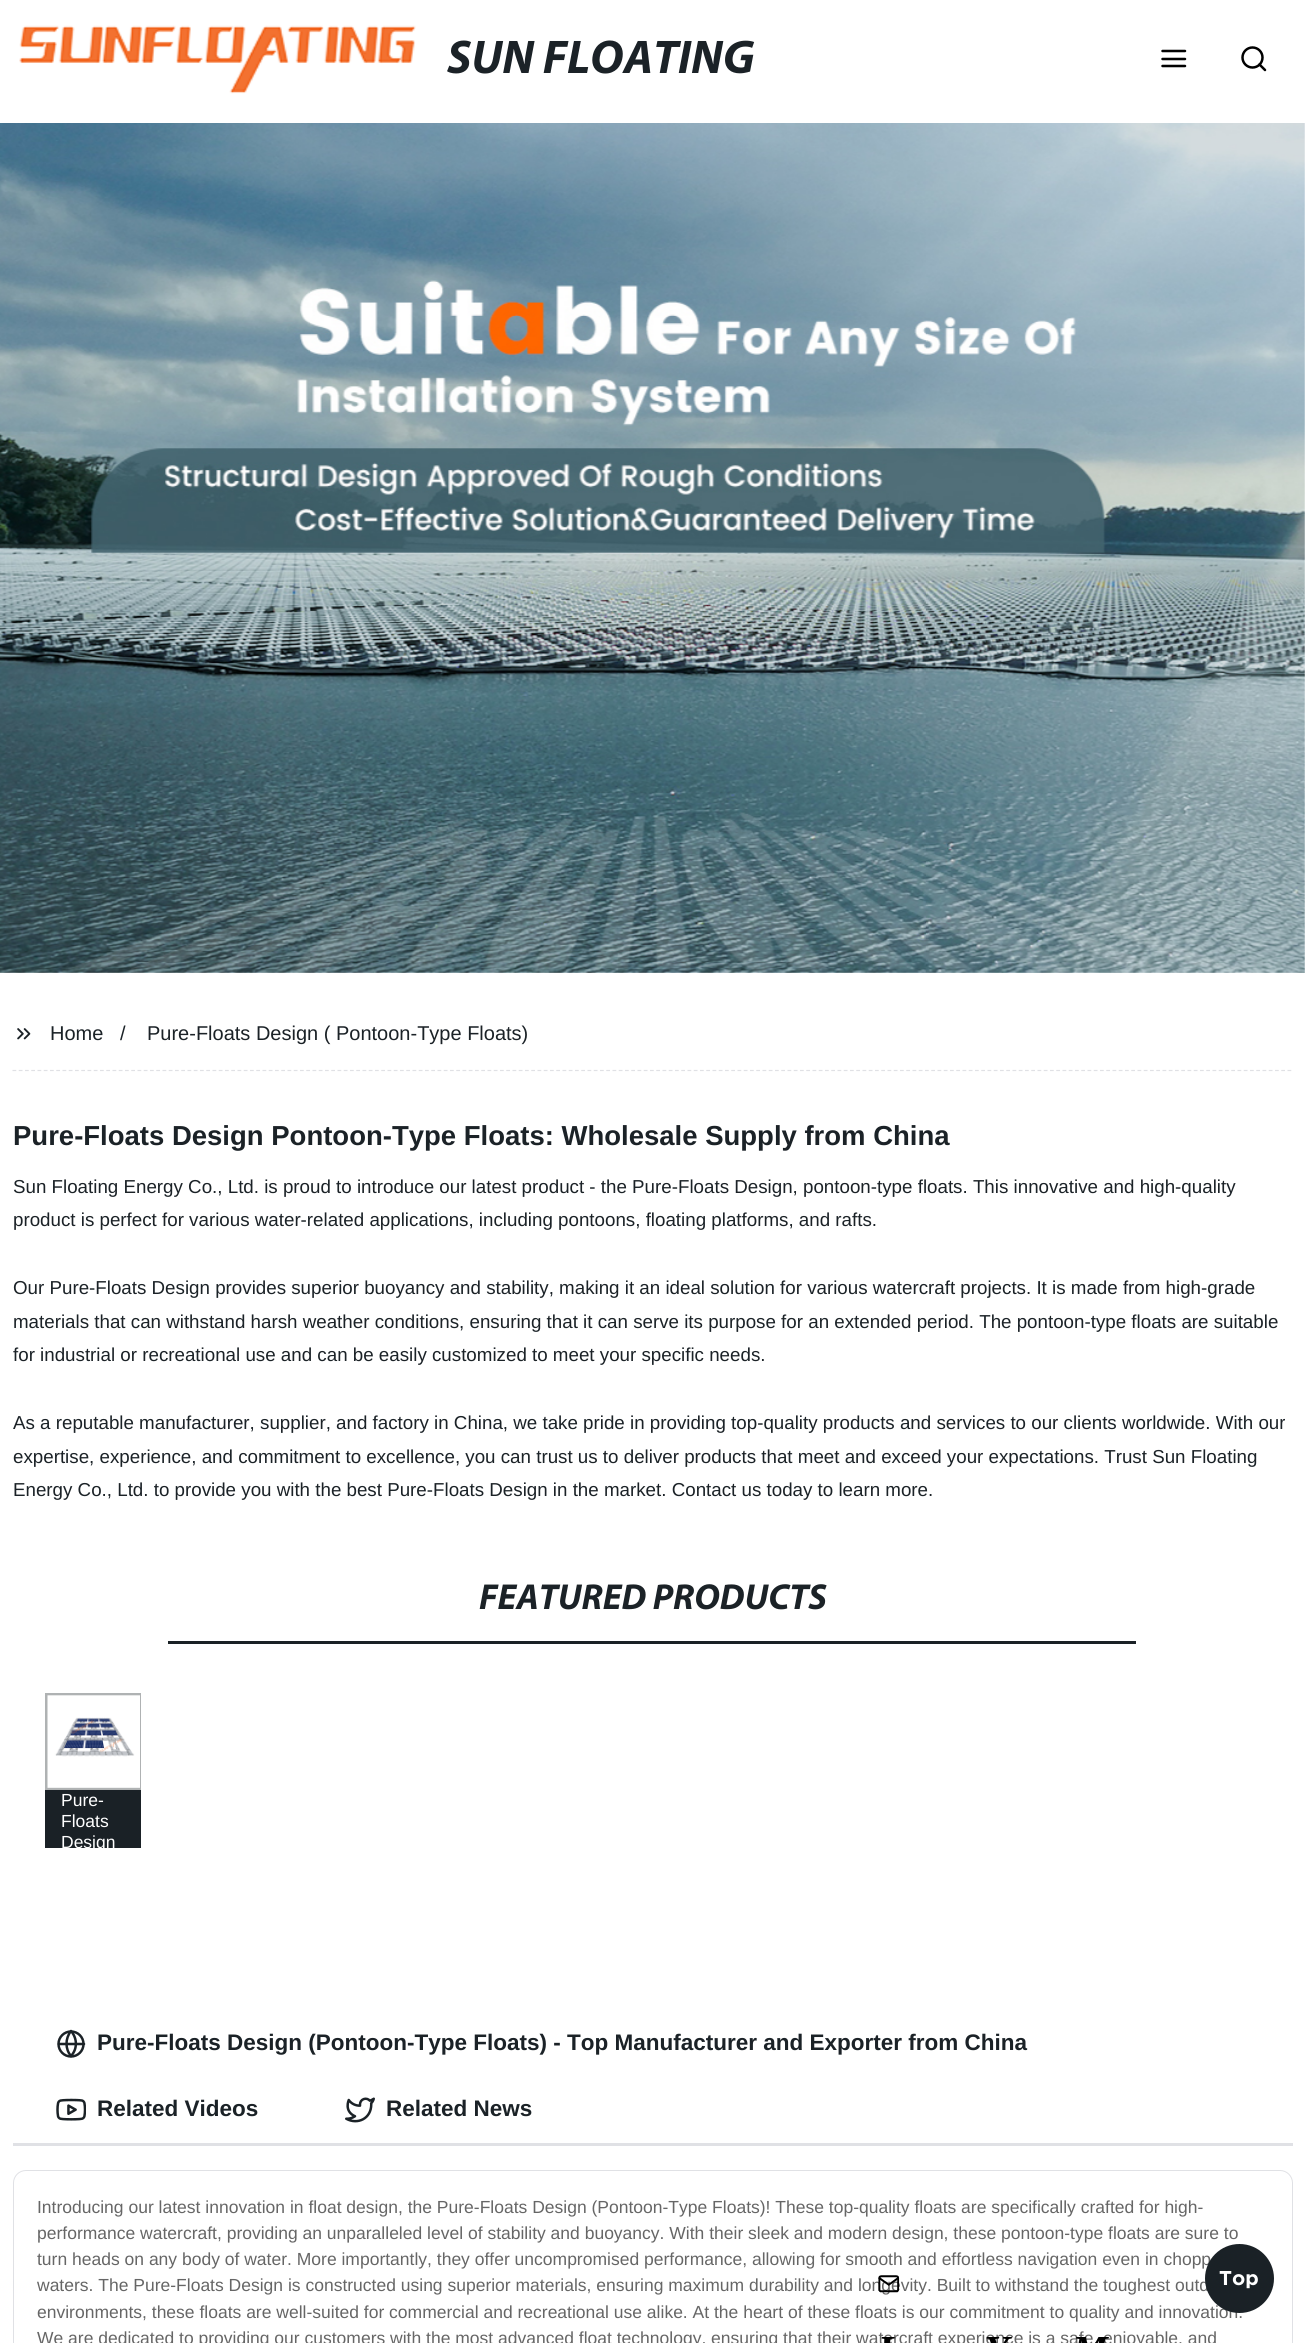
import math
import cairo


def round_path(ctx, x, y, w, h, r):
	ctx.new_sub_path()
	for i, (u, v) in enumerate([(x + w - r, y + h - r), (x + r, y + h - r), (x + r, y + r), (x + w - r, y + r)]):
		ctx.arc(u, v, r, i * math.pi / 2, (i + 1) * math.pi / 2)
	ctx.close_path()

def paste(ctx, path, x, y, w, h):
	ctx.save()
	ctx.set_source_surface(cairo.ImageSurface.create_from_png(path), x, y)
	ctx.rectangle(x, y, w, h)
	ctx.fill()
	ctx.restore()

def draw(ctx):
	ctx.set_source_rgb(1, 1, 1)
	ctx.paint()
	paste(ctx, 'media/1.png', 19, 25, 397, 69)
	ctx.select_font_face('Myriad', cairo.FONT_SLANT_ITALIC, cairo.FONT_WEIGHT_BOLD)
	ctx.set_font_size(47.5)
	ctx.set_source_rgb(0.106, 0.133, 0.153)
	ctx.move_to(447, 73)
	ctx.show_text('SUN FLOATING')
	ctx.new_path()
	ctx.move_to(1162.5, 59)
	ctx.line_to(1185, 59)
	ctx.move_to(1162.5, 51)
	ctx.line_to(1185, 51)
	ctx.move_to(1162.5, 66)
	ctx.line_to(1185, 66)
	ctx.set_source_rgb(0, 0, 0)
	ctx.set_line_width(2.5)
	ctx.set_line_cap(cairo.LINE_CAP_ROUND)
	ctx.set_line_join(cairo.LINE_JOIN_ROUND)
	ctx.stroke()
	ctx.arc(1252.5, 57.5, 10, 0, 2 * math.pi)
	ctx.set_line_cap(cairo.LINE_CAP_BUTT)
	ctx.set_line_join(cairo.LINE_JOIN_MITER)
	ctx.stroke()
	ctx.new_path()
	ctx.move_to(1265, 70)
	ctx.line_to(1259.5, 64.5)
	ctx.set_line_cap(cairo.LINE_CAP_ROUND)
	ctx.set_line_join(cairo.LINE_JOIN_ROUND)
	ctx.stroke()
	paste(ctx, 'media/2.png', 0, 123, 1305, 850)
	ctx.new_path()
	ctx.move_to(12.5, 1070.5)
	ctx.line_to(1292.5, 1070.5)
	ctx.set_source_rgb(0.878, 0.882, 0.898)
	ctx.set_line_width(1.2)
	ctx.set_line_cap(cairo.LINE_CAP_BUTT)
	ctx.set_line_join(cairo.LINE_JOIN_MITER)
	ctx.set_dash([3.75, 2.5])
	ctx.stroke()
	paste(ctx, 'media/3.png', 17, 1028, 14, 12)
	ctx.select_font_face('Liberation Sans')
	ctx.set_font_size(20)
	ctx.set_source_rgb(0.106, 0.133, 0.153)
	for x, y, s in [
		(50, 1040, 'Home'),
		(120, 1040, '/'),
		(147, 1040, 'Pure-Floats Design ( Pontoon-Type Floats)'),
	]:
		ctx.move_to(x, y)
		ctx.show_text(s)
	ctx.select_font_face('Liberation Sans', cairo.FONT_SLANT_NORMAL, cairo.FONT_WEIGHT_BOLD)
	ctx.set_font_size(27.5)
	ctx.move_to(13, 1145)
	ctx.show_text('Pure-Floats Design Pontoon-Type Floats: Wholesale Supply from China')
	ctx.select_font_face('Liberation Sans')
	ctx.set_font_size(18.75)
	for x, y, s in [
		(13, 1193, 'Sun Floating Energy Co., Ltd. is proud to introduce our latest product - the Pure-Floats Design, pontoon-type floats. This innovative and high-quality'),
		(13, 1226, 'product is perfect for various water-related applications, including pontoons, floating platforms, and rafts.'),
		(13, 1294, 'Our Pure-Floats Design provides superior buoyancy and stability, making it an ideal solution for various watercraft projects. It is made from high-grade'),
		(13, 1328, 'materials that can withstand harsh weather conditions, ensuring that it can serve its purpose for an extended period. The pontoon-type floats are suitable'),
		(13, 1361, 'for industrial or recreational use and can be easily customized to meet your specific needs.'),
		(13, 1429, 'As a reputable manufacturer, supplier, and factory in China, we take pride in providing top-quality products and services to our clients worldwide. With our'),
		(13, 1463, 'expertise, experience, and commitment to excellence, you can trust us to deliver products that meet and exceed your expectations. Trust Sun Floating'),
		(13, 1496, 'Energy Co., Ltd. to provide you with the best Pure-Floats Design in the market. Contact us today to learn more.'),
	]:
		ctx.move_to(x, y)
		ctx.show_text(s)
	ctx.select_font_face('Myriad', cairo.FONT_SLANT_ITALIC, cairo.FONT_WEIGHT_BOLD)
	ctx.set_font_size(36.25)
	ctx.move_to(479, 1609)
	ctx.show_text('FEATURED PRODUCTS')
	ctx.set_source_rgb(0.102, 0.129, 0.149)
	ctx.rectangle(168, 1641, 968, 3)
	ctx.fill()
	ctx.rectangle(46.5, 1694.5, 93, 94)
	ctx.set_source_rgb(0.686, 0.698, 0.702)
	ctx.set_line_width(3)
	ctx.set_dash([])
	ctx.stroke()
	paste(ctx, 'media/4.png', 47, 1695, 93, 93)
	ctx.set_source_rgb(0.102, 0.129, 0.149)
	ctx.rectangle(45, 1790, 96, 58)
	ctx.fill()
	ctx.select_font_face('Liberation Sans')
	ctx.set_font_size(17.5)
	ctx.set_source_rgb(1, 1, 1)
	ctx.move_to(61, 1806)
	ctx.show_text('Pure-')
	ctx.move_to(61, 1827)
	ctx.show_text('Floats')
	ctx.save()
	ctx.rectangle(45, 1790, 96, 58)
	ctx.clip()
	ctx.move_to(61, 1848)
	ctx.show_text('Design')
	ctx.restore()
	ctx.new_path()
	ctx.arc(71, 2044, 12.5, 0, 2 * math.pi)
	ctx.set_source_rgb(0.106, 0.133, 0.153)
	ctx.set_line_width(2.5)
	ctx.stroke()
	ctx.new_path()
	ctx.move_to(59, 2044)
	ctx.line_to(84, 2044)
	ctx.move_to(71, 2031)
	ctx.curve_to(77.5, 2038.5, 77.5, 2049, 71, 2056)
	ctx.curve_to(65, 2049, 65, 2038.5, 71, 2031)
	ctx.close_path()
	ctx.set_line_cap(cairo.LINE_CAP_ROUND)
	ctx.set_line_join(cairo.LINE_JOIN_ROUND)
	ctx.stroke()
	ctx.select_font_face('Liberation Sans', cairo.FONT_SLANT_NORMAL, cairo.FONT_WEIGHT_BOLD)
	ctx.set_font_size(22.5)
	ctx.move_to(97, 2050)
	ctx.show_text('Pure-Floats Design (Pontoon-Type Floats) - Top Manufacturer and Exporter from China')
	paste(ctx, 'media/5.png', 56, 2098, 30, 23)
	ctx.move_to(97, 2116)
	ctx.show_text('Related Videos')
	paste(ctx, 'media/6.png', 345, 2097, 30, 26)
	ctx.move_to(386, 2116)
	ctx.show_text('Related News')
	ctx.set_source_rgb(0.878, 0.882, 0.898)
	ctx.rectangle(13, 2143, 1280, 3)
	ctx.fill()
	round_path(ctx, 13.5, 2170.5, 1279, 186, 12.5)
	ctx.set_line_width(1)
	ctx.set_line_cap(cairo.LINE_CAP_BUTT)
	ctx.set_line_join(cairo.LINE_JOIN_MITER)
	ctx.stroke()
	ctx.select_font_face('Liberation Sans')
	ctx.set_font_size(17.5)
	ctx.set_source_rgb(0.4, 0.4, 0.4)
	for x, y, s in [
		(37, 2213, 'Introducing our latest innovation in float design, the Pure-Floats Design (Pontoon-Type Floats)! These top-quality floats are specifically crafted for high-'),
		(37, 2239, 'performance watercraft, providing an unparalleled level of stability and buoyancy. With their sleek and modern design, these pontoon-type floats are sure to'),
		(37, 2265, 'turn heads on any body of water. More importantly, they offer uncompromised performance, allowing for smooth and effortless navigation even in chopp'),
		(37, 2291, 'waters. The Pure-Floats Design is constructed using superior materials, ensuring maximum durability and longevity. Built to withstand the toughest outd'),
		(37, 2318, 'environments, these floats are well-suited for commercial and recreational use alike. At the heart of these floats is our commitment to quality and innovation.'),
		(37, 2344, 'We are dedicated to providing our customers with the most advanced float technology, ensuring that their watercraft experience is a safe, enjoyable, and'),
	]:
		ctx.move_to(x, y)
		ctx.show_text(s)
	paste(ctx, 'media/7.png', 878, 2275, 231, 68)
	ctx.set_source_rgb(0.102, 0.129, 0.149)
	ctx.arc(1239.5, 2278.5, 34.5, 0, 2 * math.pi)
	ctx.fill()
	ctx.select_font_face('Gotham', cairo.FONT_SLANT_NORMAL, cairo.FONT_WEIGHT_BOLD)
	ctx.set_font_size(20)
	ctx.set_source_rgb(1, 1, 1)
	ctx.move_to(1219, 2285)
	ctx.show_text('Top')


surface = cairo.ImageSurface(cairo.FORMAT_RGB24, 1305, 2343)
ctx = cairo.Context(surface)
options = cairo.FontOptions()
options.set_hint_metrics(cairo.HINT_METRICS_OFF)
options.set_hint_style(cairo.HINT_STYLE_NONE)
ctx.set_font_options(options)
ctx.set_miter_limit(4)
draw(ctx)
surface.write_to_png('image.png')
